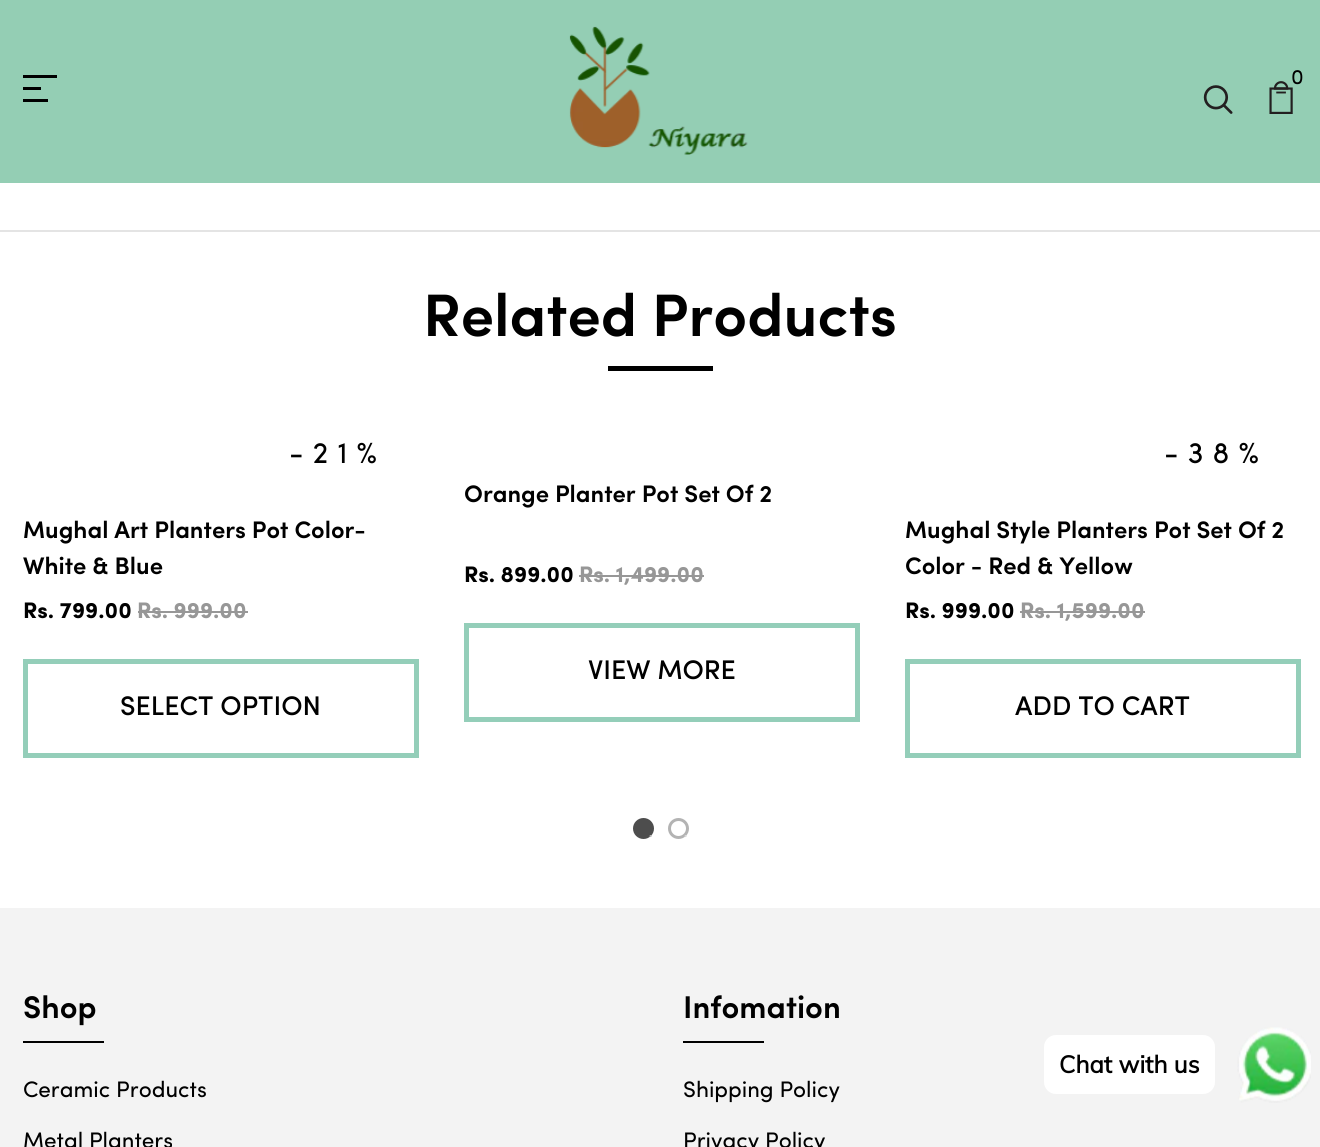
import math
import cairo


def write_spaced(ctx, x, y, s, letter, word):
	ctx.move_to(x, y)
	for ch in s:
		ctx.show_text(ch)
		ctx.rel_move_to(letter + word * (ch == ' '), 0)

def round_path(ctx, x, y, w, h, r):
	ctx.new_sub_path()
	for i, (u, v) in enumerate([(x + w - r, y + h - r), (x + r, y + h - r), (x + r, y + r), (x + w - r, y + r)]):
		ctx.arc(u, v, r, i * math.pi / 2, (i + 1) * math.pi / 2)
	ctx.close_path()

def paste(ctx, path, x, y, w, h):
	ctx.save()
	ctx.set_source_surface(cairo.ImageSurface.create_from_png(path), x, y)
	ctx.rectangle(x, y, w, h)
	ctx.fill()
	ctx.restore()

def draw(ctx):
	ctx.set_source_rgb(1, 1, 1)
	ctx.paint()
	ctx.set_source_rgb(0.58, 0.808, 0.706)
	ctx.rectangle(0, 0, 1320, 183)
	ctx.fill()
	ctx.set_source_rgb(0, 0, 0)
	ctx.rectangle(23, 75, 34, 3)
	ctx.rectangle(23, 87, 18, 3)
	ctx.rectangle(23, 99, 25, 3)
	ctx.fill()
	paste(ctx, 'media/1.png', 569, 26, 179, 129)
	paste(ctx, 'media/2.png', 1269, 81, 24, 33)
	ctx.select_font_face('Sofia')
	ctx.set_font_size(21)
	ctx.move_to(1291, 84)
	ctx.show_text('0')
	paste(ctx, 'media/3.png', 1203, 85, 30, 29)
	ctx.set_source_rgb(0.894, 0.894, 0.894)
	ctx.rectangle(0, 230, 1320, 2)
	ctx.fill()
	ctx.select_font_face('Sofia SemiBold')
	ctx.set_font_size(60)
	ctx.set_source_rgb(0, 0, 0)
	ctx.move_to(423, 336)
	ctx.show_text('Related Products')
	ctx.rectangle(608, 366, 105, 5)
	ctx.fill()
	ctx.select_font_face('Sofia')
	ctx.set_font_size(30)
	write_spaced(ctx, 289, 463, '-21%', 9, 0)
	ctx.select_font_face('Sofia SemiBold')
	ctx.set_font_size(24)
	ctx.move_to(23, 538)
	ctx.show_text('Mughal Art Planters Pot Color-')
	ctx.move_to(23, 574)
	ctx.show_text('White & Blue')
	ctx.select_font_face('Sofia', cairo.FONT_SLANT_NORMAL, cairo.FONT_WEIGHT_BOLD)
	ctx.set_font_size(22.5)
	ctx.move_to(23, 618)
	ctx.show_text('Rs. 799.00')
	ctx.set_source_rgb(0.592, 0.592, 0.592)
	ctx.move_to(137, 618)
	ctx.show_text('Rs. 999.00')
	ctx.rectangle(138, 611, 110, 2)
	ctx.fill()
	ctx.rectangle(25.5, 661.5, 391, 94)
	ctx.set_source_rgb(0.58, 0.808, 0.725)
	ctx.set_line_width(5)
	ctx.stroke()
	ctx.select_font_face('Sofia Medium')
	ctx.set_font_size(27)
	ctx.set_source_rgb(0, 0, 0)
	ctx.move_to(120, 715)
	ctx.show_text('SELECT OPTION')
	ctx.select_font_face('Sofia SemiBold')
	ctx.set_font_size(24)
	ctx.move_to(464, 502)
	ctx.show_text('Orange Planter Pot Set Of 2')
	ctx.select_font_face('Sofia', cairo.FONT_SLANT_NORMAL, cairo.FONT_WEIGHT_BOLD)
	ctx.set_font_size(22.5)
	ctx.move_to(464, 582)
	ctx.show_text('Rs. 899.00')
	ctx.set_source_rgb(0.592, 0.592, 0.592)
	ctx.move_to(579, 582)
	ctx.show_text('Rs. 1,499.00')
	ctx.rectangle(579, 575, 125, 2)
	ctx.fill()
	ctx.rectangle(466.5, 625.5, 391, 94)
	ctx.set_source_rgb(0.58, 0.808, 0.725)
	ctx.stroke()
	ctx.select_font_face('Sofia Medium')
	ctx.set_font_size(27)
	ctx.set_source_rgb(0, 0, 0)
	ctx.move_to(588, 679)
	ctx.show_text('VIEW MORE')
	ctx.select_font_face('Sofia')
	ctx.set_font_size(30)
	write_spaced(ctx, 1164, 463, '-38%', 9, 0)
	ctx.select_font_face('Sofia SemiBold')
	ctx.set_font_size(24)
	ctx.move_to(905, 538)
	ctx.show_text('Mughal Style Planters Pot Set Of 2')
	ctx.move_to(905, 574)
	ctx.show_text('Color - Red & Yellow')
	ctx.select_font_face('Sofia', cairo.FONT_SLANT_NORMAL, cairo.FONT_WEIGHT_BOLD)
	ctx.set_font_size(22.5)
	ctx.move_to(905, 618)
	ctx.show_text('Rs. 999.00')
	ctx.set_source_rgb(0.592, 0.592, 0.592)
	ctx.move_to(1020, 618)
	ctx.show_text('Rs. 1,599.00')
	ctx.rectangle(1020, 611, 125, 2)
	ctx.fill()
	ctx.rectangle(907.5, 661.5, 391, 94)
	ctx.set_source_rgb(0.58, 0.808, 0.725)
	ctx.stroke()
	ctx.select_font_face('Sofia Medium')
	ctx.set_font_size(27)
	ctx.set_source_rgb(0, 0, 0)
	ctx.move_to(1015, 715)
	ctx.show_text('ADD TO CART')
	ctx.set_source_rgb(0.302, 0.302, 0.302)
	ctx.new_path()
	ctx.arc(643.5, 828.5, 10.5, 0, 2 * math.pi)
	ctx.fill()
	ctx.select_font_face('Liberation Serif')
	ctx.set_font_size(9)
	ctx.set_source_rgb(0.706, 0.706, 0.706)
	ctx.move_to(649, 839)
	ctx.show_text('•')
	ctx.new_path()
	ctx.arc(678.5, 828.5, 9, 0, 2 * math.pi)
	ctx.set_source_rgb(0.702, 0.702, 0.702)
	ctx.set_line_width(3)
	ctx.stroke()
	ctx.set_source_rgb(0.847, 0.847, 0.847)
	ctx.move_to(684, 839)
	ctx.show_text('•')
	ctx.set_source_rgb(0.953, 0.953, 0.953)
	ctx.rectangle(0, 908, 1320, 239)
	ctx.fill()
	ctx.select_font_face('Sofia SemiBold')
	ctx.set_font_size(31.5)
	ctx.set_source_rgb(0, 0, 0)
	ctx.move_to(23, 1018)
	ctx.show_text('Shop')
	ctx.rectangle(23, 1041, 81, 2)
	ctx.fill()
	ctx.select_font_face('Sofia')
	ctx.set_font_size(22.5)
	ctx.move_to(23, 1097)
	ctx.show_text('Ceramic Products')
	ctx.move_to(23, 1148)
	ctx.show_text('Metal Planters')
	ctx.select_font_face('Sofia SemiBold')
	ctx.set_font_size(31.5)
	ctx.move_to(683, 1018)
	ctx.show_text('Infomation')
	ctx.rectangle(683, 1041, 81, 2)
	ctx.fill()
	ctx.select_font_face('Sofia')
	ctx.set_font_size(22.5)
	ctx.move_to(683, 1097)
	ctx.show_text('Shipping Policy')
	ctx.move_to(683, 1148)
	ctx.show_text('Privacy Policy')
	paste(ctx, 'media/4.png', 1237, 1027, 74, 76)
	ctx.set_source_rgb(1, 1, 1)
	round_path(ctx, 1044, 1035, 171, 59, 12)
	ctx.fill()
	ctx.select_font_face('Muli', cairo.FONT_SLANT_NORMAL, cairo.FONT_WEIGHT_BOLD)
	ctx.set_font_size(24)
	ctx.set_source_rgb(0, 0, 0)
	ctx.move_to(1059, 1073)
	ctx.show_text('Chat with us')


surface = cairo.ImageSurface(cairo.FORMAT_RGB24, 1320, 1147)
ctx = cairo.Context(surface)
options = cairo.FontOptions()
options.set_hint_metrics(cairo.HINT_METRICS_OFF)
options.set_hint_style(cairo.HINT_STYLE_NONE)
ctx.set_font_options(options)
ctx.set_miter_limit(4)
draw(ctx)
surface.write_to_png('image.png')
